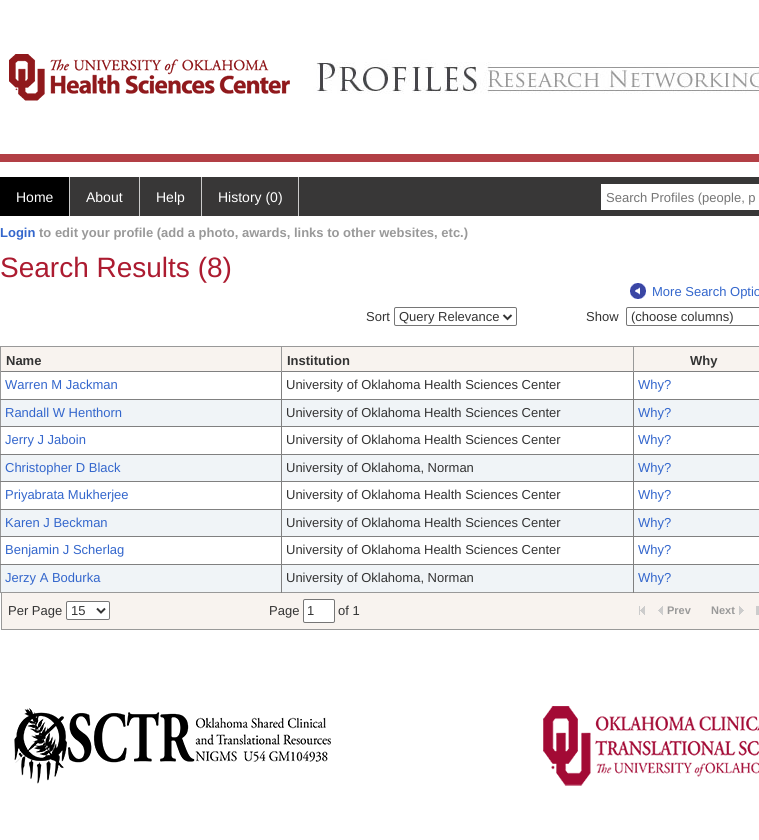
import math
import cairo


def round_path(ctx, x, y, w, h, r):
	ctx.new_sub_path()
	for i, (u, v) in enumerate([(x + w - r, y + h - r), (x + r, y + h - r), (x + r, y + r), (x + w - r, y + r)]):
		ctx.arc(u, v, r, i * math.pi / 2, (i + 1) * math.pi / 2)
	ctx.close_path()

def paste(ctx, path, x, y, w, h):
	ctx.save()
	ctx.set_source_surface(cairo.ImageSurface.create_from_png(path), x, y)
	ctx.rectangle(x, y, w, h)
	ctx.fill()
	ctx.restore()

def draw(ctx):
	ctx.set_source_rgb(1, 1, 1)
	ctx.paint()
	ctx.set_source_rgb(0.698, 0.247, 0.271)
	ctx.rectangle(0, 154, 759, 8)
	ctx.fill()
	paste(ctx, 'media/1.png', 9, 54, 750, 47)
	ctx.set_source_rgb(0.22, 0.216, 0.216)
	ctx.rectangle(70, 177, 689, 39)
	ctx.fill()
	ctx.set_source_rgb(0, 0, 0)
	ctx.rectangle(0, 177, 69, 39)
	ctx.fill()
	ctx.set_source_rgb(0.8, 0.8, 0.8)
	ctx.rectangle(69, 177, 1, 39)
	ctx.fill()
	ctx.select_font_face('Liberation Sans')
	ctx.set_font_size(14)
	ctx.set_source_rgb(1, 1, 1)
	ctx.move_to(16, 202)
	ctx.show_text('Home')
	ctx.set_source_rgb(0.8, 0.8, 0.8)
	ctx.rectangle(139, 177, 1, 39)
	ctx.fill()
	ctx.set_source_rgb(1, 1, 1)
	ctx.move_to(86, 202)
	ctx.show_text('About')
	ctx.set_source_rgb(0.8, 0.8, 0.8)
	ctx.rectangle(201, 177, 1, 39)
	ctx.fill()
	ctx.set_source_rgb(1, 1, 1)
	ctx.move_to(156, 202)
	ctx.show_text('Help')
	ctx.set_source_rgb(0.8, 0.8, 0.8)
	ctx.rectangle(298, 177, 1, 39)
	ctx.fill()
	ctx.set_source_rgb(1, 1, 1)
	ctx.move_to(218, 202)
	ctx.show_text('History (0)')
	ctx.rectangle(601, 184, 158, 26)
	ctx.fill()
	ctx.set_font_size(13)
	ctx.set_source_rgb(0.459, 0.459, 0.459)
	ctx.move_to(606, 202)
	ctx.show_text('Search Profiles (people, p')
	ctx.select_font_face('Liberation Sans', cairo.FONT_SLANT_NORMAL, cairo.FONT_WEIGHT_BOLD)
	ctx.set_source_rgb(0.2, 0.4, 0.8)
	ctx.move_to(0, 237)
	ctx.show_text('Login')
	ctx.set_source_rgb(0.6, 0.6, 0.6)
	ctx.move_to(39, 237)
	ctx.show_text('to edit your profile (add a photo, awards, links to other websites, etc.)')
	ctx.select_font_face('Liberation Sans')
	ctx.set_font_size(28)
	ctx.set_source_rgb(0.675, 0.106, 0.188)
	ctx.move_to(0, 277)
	ctx.show_text('Search Results (8)')
	paste(ctx, 'media/2.png', 630, 283, 16, 16)
	ctx.set_font_size(13)
	ctx.set_source_rgb(0.2, 0.4, 0.8)
	ctx.move_to(652, 296)
	ctx.show_text('More Search Optio')
	ctx.set_source_rgb(0.2, 0.2, 0.2)
	ctx.move_to(366, 321)
	ctx.show_text('Sort')
	round_path(ctx, 394.5, 307.5, 122, 18, 1.5)
	ctx.set_source_rgb(0.463, 0.463, 0.463)
	ctx.set_line_width(1)
	ctx.stroke()
	ctx.new_path()
	ctx.move_to(503.5, 315)
	ctx.line_to(507.5, 319)
	ctx.line_to(511.5, 315)
	ctx.set_source_rgb(0.2, 0.2, 0.2)
	ctx.set_line_width(2)
	ctx.stroke()
	ctx.move_to(399, 321)
	ctx.show_text('Query Relevance')
	ctx.move_to(586, 321)
	ctx.show_text('Show')
	round_path(ctx, 626.5, 307.5, 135, 18, 1.5)
	ctx.set_source_rgb(0.463, 0.463, 0.463)
	ctx.set_line_width(1)
	ctx.stroke()
	ctx.set_source_rgb(0.2, 0.2, 0.2)
	ctx.move_to(631, 321)
	ctx.show_text('(choose columns)')
	ctx.set_source_rgb(0.6, 0.6, 0.6)
	ctx.rectangle(0, 346, 759, 1)
	ctx.rectangle(0, 592, 759, 1)
	ctx.rectangle(0, 372, 1, 221)
	ctx.fill()
	ctx.set_source_rgb(0.969, 0.953, 0.937)
	ctx.rectangle(1, 347, 280, 24)
	ctx.fill()
	ctx.set_source_rgb(0.502, 0.502, 0.502)
	ctx.rectangle(0, 371, 759, 1)
	ctx.fill()
	ctx.set_source_rgb(0.6, 0.6, 0.6)
	ctx.rectangle(0, 346, 1, 26)
	ctx.fill()
	ctx.select_font_face('Liberation Sans', cairo.FONT_SLANT_NORMAL, cairo.FONT_WEIGHT_BOLD)
	ctx.set_source_rgb(0.2, 0.2, 0.2)
	ctx.move_to(6, 365)
	ctx.show_text('Name')
	ctx.set_source_rgb(0.969, 0.953, 0.937)
	ctx.rectangle(282, 347, 351, 24)
	ctx.fill()
	ctx.set_source_rgb(0.941, 0.957, 0.965)
	ctx.rectangle(1, 400, 758, 26)
	ctx.fill()
	ctx.set_source_rgb(0.502, 0.502, 0.502)
	ctx.rectangle(0, 399, 759, 1)
	ctx.rectangle(0, 426, 759, 1)
	ctx.fill()
	ctx.set_source_rgb(0.941, 0.957, 0.965)
	ctx.rectangle(1, 455, 758, 26)
	ctx.fill()
	ctx.set_source_rgb(0.502, 0.502, 0.502)
	ctx.rectangle(0, 454, 759, 1)
	ctx.rectangle(0, 481, 759, 1)
	ctx.fill()
	ctx.set_source_rgb(0.941, 0.957, 0.965)
	ctx.rectangle(1, 510, 758, 26)
	ctx.fill()
	ctx.set_source_rgb(0.502, 0.502, 0.502)
	ctx.rectangle(0, 509, 759, 1)
	ctx.rectangle(0, 536, 759, 1)
	ctx.fill()
	ctx.set_source_rgb(0.941, 0.957, 0.965)
	ctx.rectangle(1, 565, 758, 27)
	ctx.fill()
	ctx.set_source_rgb(0.502, 0.502, 0.502)
	ctx.rectangle(0, 564, 759, 1)
	ctx.rectangle(281, 564, 1, 29)
	ctx.rectangle(281, 536, 1, 29)
	ctx.rectangle(281, 509, 1, 28)
	ctx.rectangle(281, 481, 1, 29)
	ctx.rectangle(281, 454, 1, 28)
	ctx.rectangle(281, 426, 1, 29)
	ctx.rectangle(281, 399, 1, 28)
	ctx.rectangle(281, 371, 1, 29)
	ctx.fill()
	ctx.set_source_rgb(0.6, 0.6, 0.6)
	ctx.rectangle(281, 346, 1, 26)
	ctx.fill()
	ctx.set_source_rgb(0.2, 0.2, 0.2)
	ctx.move_to(287, 365)
	ctx.show_text('Institution')
	ctx.set_source_rgb(0.969, 0.953, 0.937)
	ctx.rectangle(634, 347, 125, 24)
	ctx.fill()
	ctx.set_source_rgb(0.502, 0.502, 0.502)
	ctx.rectangle(633, 564, 1, 29)
	ctx.rectangle(633, 536, 1, 29)
	ctx.rectangle(633, 509, 1, 28)
	ctx.rectangle(633, 481, 1, 29)
	ctx.rectangle(633, 454, 1, 28)
	ctx.rectangle(633, 426, 1, 29)
	ctx.rectangle(633, 399, 1, 28)
	ctx.rectangle(633, 371, 1, 29)
	ctx.fill()
	ctx.set_source_rgb(0.6, 0.6, 0.6)
	ctx.rectangle(633, 346, 1, 26)
	ctx.fill()
	ctx.set_source_rgb(0.2, 0.2, 0.2)
	ctx.move_to(690, 365)
	ctx.show_text('Why')
	ctx.select_font_face('Liberation Sans')
	ctx.set_source_rgb(0.2, 0.4, 0.8)
	ctx.move_to(5, 389)
	ctx.show_text('Warren M Jackman')
	ctx.set_source_rgb(0.2, 0.2, 0.2)
	ctx.move_to(286, 389)
	ctx.show_text('University of Oklahoma Health Sciences Center')
	ctx.set_source_rgb(0.2, 0.4, 0.8)
	ctx.move_to(638, 389)
	ctx.show_text('Why?')
	ctx.move_to(5, 417)
	ctx.show_text('Randall W Henthorn')
	ctx.set_source_rgb(0.2, 0.2, 0.2)
	ctx.move_to(286, 417)
	ctx.show_text('University of Oklahoma Health Sciences Center')
	ctx.set_source_rgb(0.2, 0.4, 0.8)
	ctx.move_to(638, 417)
	ctx.show_text('Why?')
	ctx.move_to(5, 444)
	ctx.show_text('Jerry J Jaboin')
	ctx.set_source_rgb(0.2, 0.2, 0.2)
	ctx.move_to(286, 444)
	ctx.show_text('University of Oklahoma Health Sciences Center')
	ctx.set_source_rgb(0.2, 0.4, 0.8)
	ctx.move_to(638, 444)
	ctx.show_text('Why?')
	ctx.move_to(5, 472)
	ctx.show_text('Christopher D Black')
	ctx.set_source_rgb(0.2, 0.2, 0.2)
	ctx.move_to(286, 472)
	ctx.show_text('University of Oklahoma, Norman')
	ctx.set_source_rgb(0.2, 0.4, 0.8)
	ctx.move_to(638, 472)
	ctx.show_text('Why?')
	ctx.move_to(5, 499)
	ctx.show_text('Priyabrata Mukherjee')
	ctx.set_source_rgb(0.2, 0.2, 0.2)
	ctx.move_to(286, 499)
	ctx.show_text('University of Oklahoma Health Sciences Center')
	ctx.set_source_rgb(0.2, 0.4, 0.8)
	ctx.move_to(638, 499)
	ctx.show_text('Why?')
	ctx.move_to(5, 527)
	ctx.show_text('Karen J Beckman')
	ctx.set_source_rgb(0.2, 0.2, 0.2)
	ctx.move_to(286, 527)
	ctx.show_text('University of Oklahoma Health Sciences Center')
	ctx.set_source_rgb(0.2, 0.4, 0.8)
	ctx.move_to(638, 527)
	ctx.show_text('Why?')
	ctx.move_to(5, 554)
	ctx.show_text('Benjamin J Scherlag')
	ctx.set_source_rgb(0.2, 0.2, 0.2)
	ctx.move_to(286, 554)
	ctx.show_text('University of Oklahoma Health Sciences Center')
	ctx.set_source_rgb(0.2, 0.4, 0.8)
	ctx.move_to(638, 554)
	ctx.show_text('Why?')
	ctx.move_to(5, 582)
	ctx.show_text('Jerzy A Bodurka')
	ctx.set_source_rgb(0.2, 0.2, 0.2)
	ctx.move_to(286, 582)
	ctx.show_text('University of Oklahoma, Norman')
	ctx.set_source_rgb(0.2, 0.4, 0.8)
	ctx.move_to(638, 582)
	ctx.show_text('Why?')
	ctx.set_source_rgb(0.969, 0.953, 0.937)
	ctx.rectangle(2, 593, 757, 36)
	ctx.fill()
	ctx.set_source_rgb(0.6, 0.6, 0.6)
	ctx.rectangle(1, 629, 758, 1)
	ctx.rectangle(1, 593, 1, 37)
	ctx.fill()
	ctx.set_source_rgb(0.2, 0.2, 0.2)
	ctx.move_to(8, 615)
	ctx.show_text('Per Page')
	ctx.set_source_rgb(1, 1, 1)
	round_path(ctx, 66.5, 601.5, 43, 18, 1.5)
	ctx.fill_preserve()
	ctx.set_source_rgb(0.463, 0.463, 0.463)
	ctx.stroke()
	ctx.new_path()
	ctx.move_to(97, 608.5)
	ctx.line_to(101, 612.5)
	ctx.line_to(105, 608.5)
	ctx.set_source_rgb(0.2, 0.2, 0.2)
	ctx.set_line_width(2)
	ctx.stroke()
	ctx.move_to(71, 615)
	ctx.show_text('15')
	ctx.move_to(269, 615)
	ctx.show_text('Page')
	ctx.set_source_rgb(1, 1, 1)
	round_path(ctx, 303.5, 599.5, 31, 23, 1.5)
	ctx.fill_preserve()
	ctx.set_source_rgb(0.463, 0.463, 0.463)
	ctx.set_line_width(1)
	ctx.stroke()
	ctx.set_source_rgb(0.2, 0.2, 0.2)
	ctx.move_to(307, 615)
	ctx.show_text('1')
	ctx.move_to(338, 615)
	ctx.show_text('of 1')
	paste(ctx, 'media/3.png', 639, 606, 6, 9)
	paste(ctx, 'media/4.png', 658, 606, 5, 9)
	ctx.select_font_face('Liberation Sans', cairo.FONT_SLANT_NORMAL, cairo.FONT_WEIGHT_BOLD)
	ctx.set_font_size(11)
	ctx.set_source_rgb(0.6, 0.6, 0.6)
	ctx.move_to(667, 614)
	ctx.show_text('Prev')
	ctx.move_to(711, 614)
	ctx.show_text('Next')
	paste(ctx, 'media/5.png', 739, 606, 5, 9)
	ctx.set_source_rgb(0.8, 0.8, 0.8)
	ctx.rectangle(756, 606, 3, 9)
	ctx.fill()
	paste(ctx, 'media/6.png', 14, 706, 745, 80)


surface = cairo.ImageSurface(cairo.FORMAT_RGB24, 759, 840)
ctx = cairo.Context(surface)
options = cairo.FontOptions()
options.set_hint_metrics(cairo.HINT_METRICS_OFF)
options.set_hint_style(cairo.HINT_STYLE_NONE)
ctx.set_font_options(options)
ctx.set_miter_limit(4)
draw(ctx)
surface.write_to_png('image.png')
